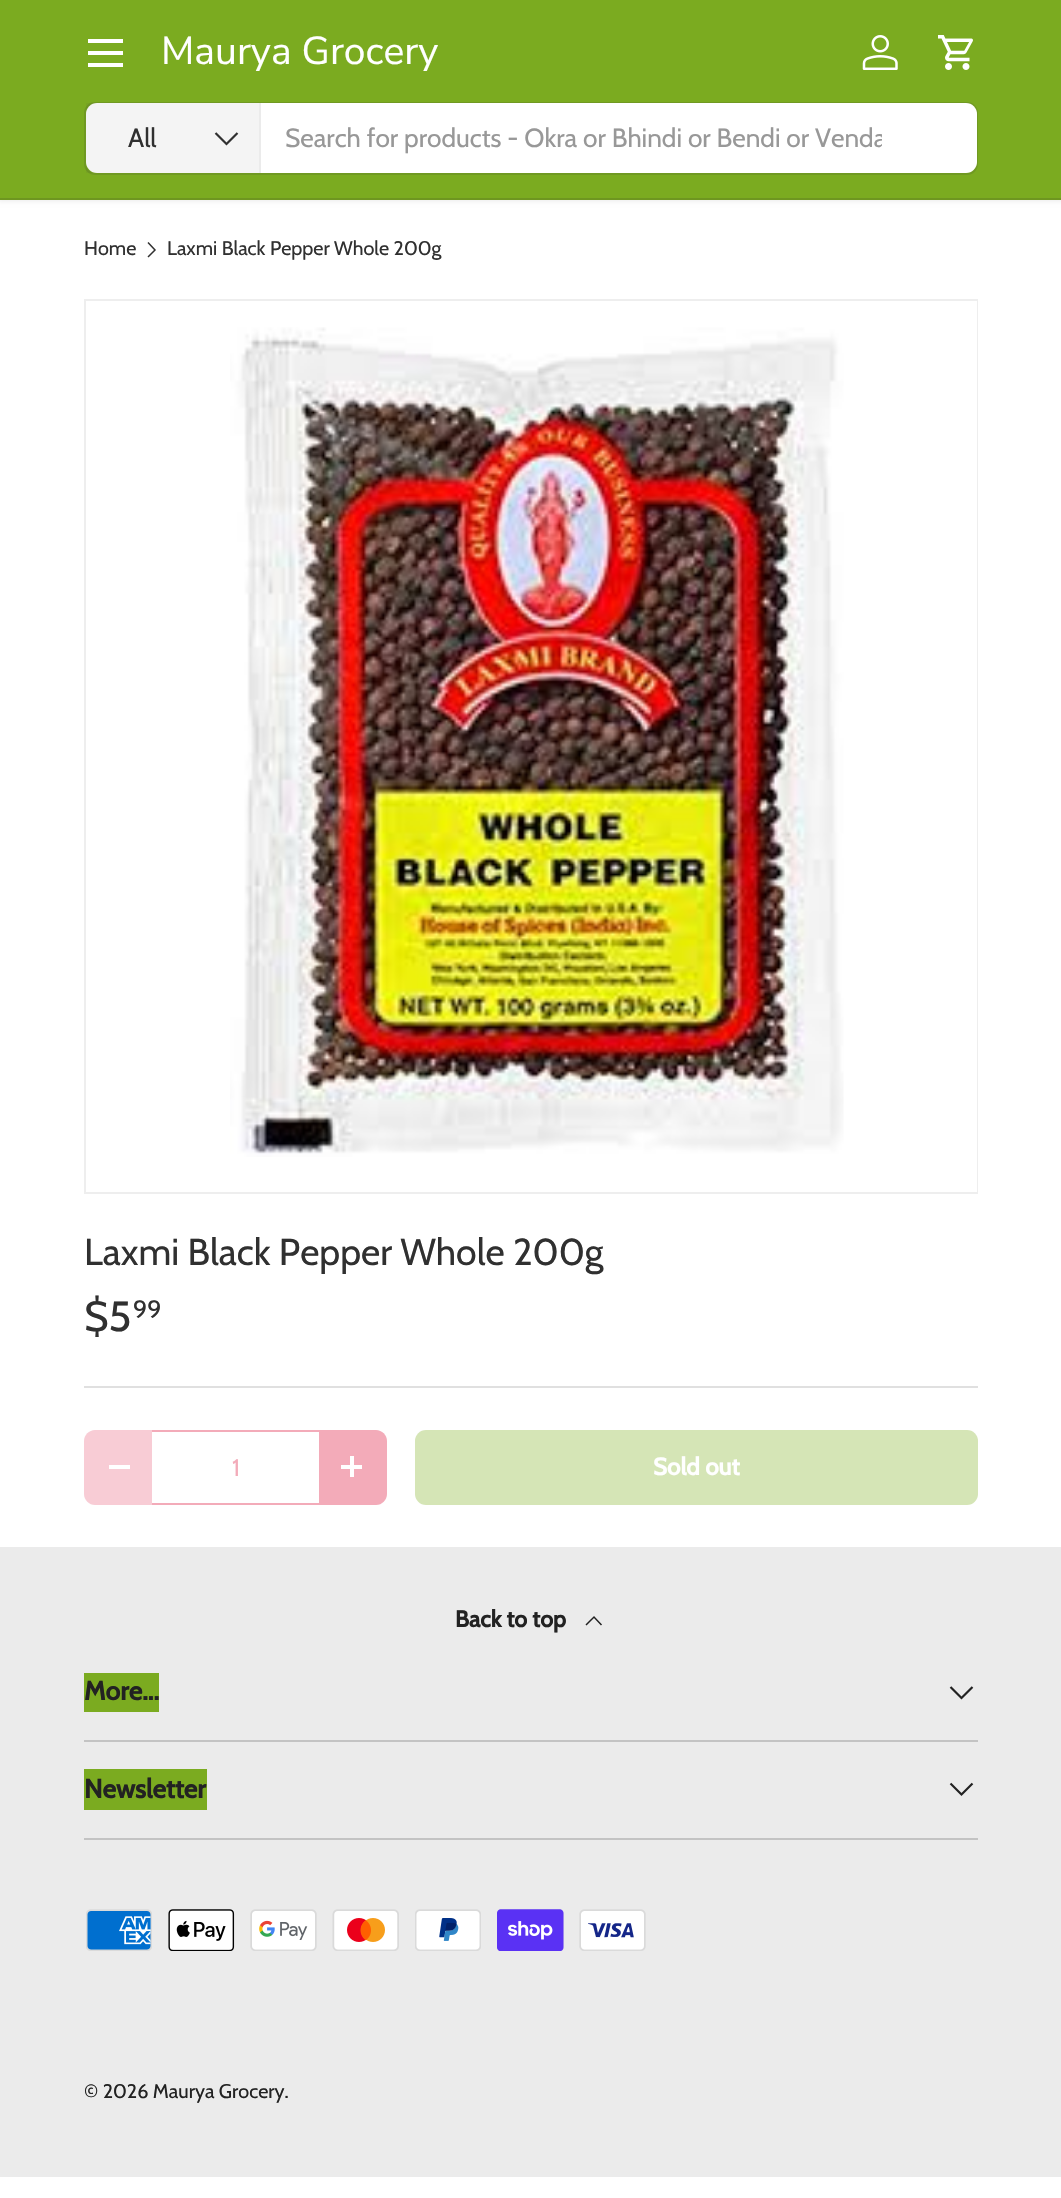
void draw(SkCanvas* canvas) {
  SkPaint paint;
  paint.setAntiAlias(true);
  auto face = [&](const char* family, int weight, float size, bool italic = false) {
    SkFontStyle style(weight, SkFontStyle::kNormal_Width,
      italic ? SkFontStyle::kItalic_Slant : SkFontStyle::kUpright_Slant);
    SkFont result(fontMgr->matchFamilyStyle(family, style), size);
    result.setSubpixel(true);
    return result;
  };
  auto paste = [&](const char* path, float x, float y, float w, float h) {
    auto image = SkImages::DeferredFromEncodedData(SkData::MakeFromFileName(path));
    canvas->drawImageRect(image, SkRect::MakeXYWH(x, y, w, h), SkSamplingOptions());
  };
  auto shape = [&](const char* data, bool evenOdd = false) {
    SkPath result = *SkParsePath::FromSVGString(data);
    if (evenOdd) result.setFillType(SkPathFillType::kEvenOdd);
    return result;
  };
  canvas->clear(0xffffffff);
  paint.setColor(0x14000000);
  paint.setMaskFilter(SkMaskFilter::MakeBlur(kNormal_SkBlurStyle, 2.5f));
  canvas->drawRect(SkRect::MakeXYWH(-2, -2, 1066, 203), paint);
  paint.setMaskFilter(nullptr);
  {
    const struct { float x, y, w, h; SkColor color; } items[] = {
      {0, 0, 1061, 198, 0xff7bab20},
      {88, 39, 35, 4, 0xffffffff},
      {88, 63, 35, 4, 0xffffffff},
      {88, 51, 35, 4, 0xffffffff},
    };
    for (auto [x, y, w, h, color] : items) {
      paint.setColor(color);
      canvas->drawRect(SkRect::MakeXYWH(x, y, w, h), paint);
    }
  }
  paste("img/1.png", 862, 35, 36, 35);
  paste("img/2.png", 938, 35, 35, 35);
  paint.setStroke(true);
  paint.setStrokeWidth(2);
  paint.setColor(0xff709922);
  canvas->drawRoundRect(SkRect::MakeXYWH(85, 103, 892, 71), 10, 10, paint);
  paint.setStroke(false);
  paint.setColor(0xffffffff);
  canvas->drawRoundRect(SkRect::MakeXYWH(86, 103, 891, 70), 11, 11, paint);
  paint.setColor(0x0d303030);
  canvas->drawRect(SkRect::MakeXYWH(86, 103, 173, 70), paint);
  paint.setColor(0xffebebeb);
  canvas->drawRect(SkRect::MakeXYWH(259, 103, 2, 70), paint);
  paint.setStroke(true);
  paint.setStrokeWidth(2.2f);
  paint.setColor(0xff303030);
  canvas->drawPath(shape("M237.5 133L226.5 144L215.5 133"), paint);
  paint.setStroke(false);
  paint.setColor(0xff6e9620);
  canvas->drawRect(SkRect::MakeXYWH(0, 198, 1061, 2), paint);
  paint.setStroke(true);
  paint.setStrokeWidth(1.5f);
  paint.setColor(0xff303030);
  canvas->drawPath(shape("M148 242.5L155 250L148 257"), paint);
  paint.setStrokeWidth(2);
  paint.setColor(0xffeeeeee);
  canvas->drawRect(SkRect::MakeXYWH(85, 300, 892, 893), paint);
  paint.setStroke(false);
  paint.setColor(0xffffffff);
  canvas->drawRect(SkRect::MakeXYWH(976, 301, 1, 891), paint);
  paste("img/3.png", 230, 327, 614, 830);
  paint.setColor(0xffe0e0e0);
  canvas->drawRect(SkRect::MakeXYWH(84, 1386, 894, 2), paint);
  paint.setColor(0xfff8ccd5);
  canvas->drawPath(shape("M95 1430H152V1505H95C89 1505 84 1500 84 1494V1441C84 1435 89 1430 95 1430Z"), paint);
  {
    const struct { float x, y, w, h; SkColor color; } items[] = {
      {109, 1465, 21, 4, 0xffffffff},
      {152, 1503, 167, 2, 0xfff3abb9},
      {152, 1430, 167, 2, 0xfff3abb9},
    };
    for (auto [x, y, w, h, color] : items) {
      paint.setColor(color);
      canvas->drawRect(SkRect::MakeXYWH(x, y, w, h), paint);
    }
  }
  canvas->drawPath(shape("M319 1430H376C382 1430 387 1435 387 1441V1494C387 1500 382 1505 376 1505H319Z"), paint);
  paint.setColor(0xffffffff);
  canvas->drawRect(SkRect::MakeXYWH(341, 1465, 21, 4), paint);
  canvas->drawRect(SkRect::MakeXYWH(350, 1456, 4, 21), paint);
  {
    const SkColor colors[] = {0xffd5e5b6, 0xffcadda6, 0xffcadda6};
    const float stops[] = {0.6f, 0.6f, 1};
    const SkPoint ends[] = {{455, 1267}, {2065, 1668}};
    paint.setShader(SkGradientShader::MakeLinear(ends, colors, stops, 3, SkTileMode::kClamp));
    paint.setAlpha(255);
  }
  canvas->drawRoundRect(SkRect::MakeXYWH(415, 1430, 563, 75), 11, 11, paint);
  paint.setShader(nullptr);
  paint.setColor(0xffebebeb);
  canvas->drawRect(SkRect::MakeXYWH(0, 1547, 1061, 630), paint);
  paint.setStroke(true);
  paint.setStrokeWidth(1.5f);
  paint.setColor(0xff222222);
  canvas->drawPath(shape("M586 1625L594 1617L601.5 1625"), paint);
  paint.setStroke(false);
  paint.setColor(0xffc3c3c3);
  canvas->drawRect(SkRect::MakeXYWH(84, 1740, 894, 2), paint);
  paint.setColor(0xff7bab20);
  canvas->drawRect(SkRect::MakeXYWH(84, 1673, 75, 39), paint);
  paint.setStroke(true);
  paint.setStrokeWidth(2.2f);
  paint.setColor(0xff222222);
  canvas->drawPath(shape("M972.5 1687L961.5 1698L950.5 1687"), paint);
  paint.setStroke(false);
  paint.setColor(0xffc3c3c3);
  canvas->drawRect(SkRect::MakeXYWH(84, 1838, 894, 2), paint);
  paint.setColor(0xff7bab20);
  canvas->drawRect(SkRect::MakeXYWH(84, 1769, 123, 41), paint);
  paint.setStroke(true);
  paint.setColor(0xff222222);
  canvas->drawPath(shape("M972.5 1783.5L961.5 1794.5L950.5 1783.5"), paint);
  paste("img/4.png", 86, 1909, 66, 42);
  paste("img/5.png", 168, 1909, 67, 42);
  paste("img/6.png", 250, 1909, 67, 42);
  paste("img/7.png", 332, 1909, 67, 42);
  paste("img/8.png", 415, 1909, 66, 42);
  paste("img/9.png", 497, 1909, 67, 42);
  paste("img/10.png", 579, 1909, 67, 42);
  auto f0 = face("Nunito Sans", 400, 39);
  paint.setStroke(false);
  paint.setColor(0xffffffff);
  canvas->drawString("Maurya Grocery", 161, 64, f0, paint);
  auto f1 = face("Cabin", 400, 26.25f);
  paint.setColor(0xff303030);
  canvas->drawString("All", 128, 147, f1, paint);
  canvas->save();
  canvas->clipRect(SkRect::MakeXYWH(285, 123, 597, 31));
  paint.setColor(0xff989898);
  canvas->drawString("Search for products - Okra or Bhindi or Bendi or Venda", 285, 147, f1, paint);
  canvas->restore();
  auto f2 = face("Cabin", 400, 19.75f);
  paint.setColor(0xff303030);
  canvas->drawString("Home", 84, 255, f2, paint);
  canvas->drawString("Laxmi Black Pepper Whole 200g", 167, 255, f2, paint);
  auto f3 = face("Cabin", 400, 37.4f);
  canvas->drawString("Laxmi Black Pepper Whole 200g", 84, 1265, f3, paint);
  auto f4 = face("Cabin", 400, 42);
  canvas->drawString("$5", 84, 1331, f4, paint);
  auto f5 = face("Cabin", 400, 25);
  canvas->drawString("99", 133, 1318, f5, paint);
  auto f6 = face("Cabin", 400, 24);
  paint.setColor(0xfff3abb9);
  canvas->drawString("1", 232, 1476, f6, paint);
  auto f7 = face("Cabin", 700, 24);
  paint.setColor(0xffffffff);
  canvas->drawString("Sold out", 653, 1475, f7, paint);
  auto f8 = face("Cabin", 700, 23);
  paint.setColor(0xff222222);
  canvas->drawString("Back to top", 455, 1627, f8, paint);
  auto f9 = face("Cabin", 700, 26.25f);
  canvas->drawString("More...", 84, 1700, f9, paint);
  canvas->drawString("Newsletter", 84, 1798, f9, paint);
  canvas->drawString("© 2026 Maurya Grocery.", 84, 2098, f2, paint);
}
